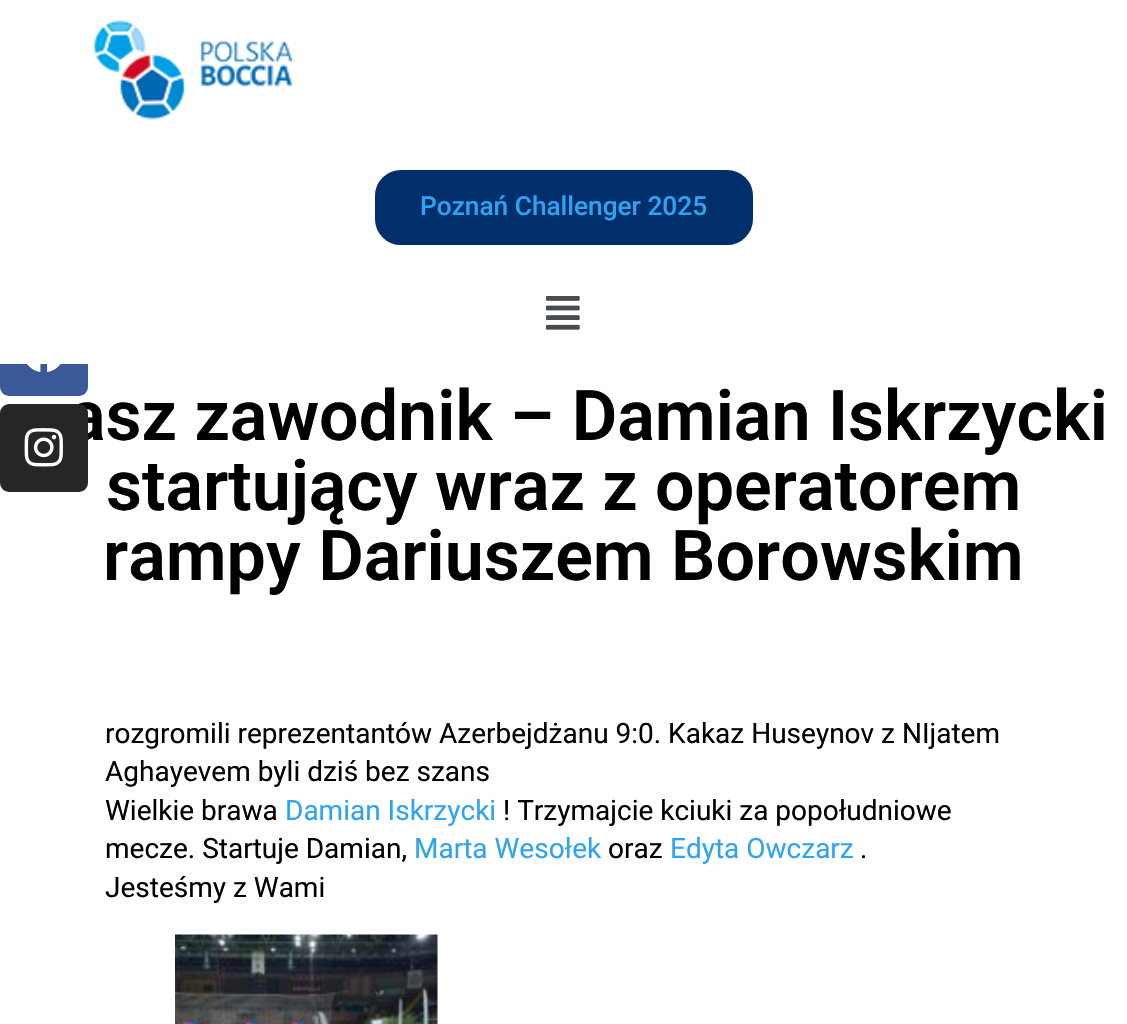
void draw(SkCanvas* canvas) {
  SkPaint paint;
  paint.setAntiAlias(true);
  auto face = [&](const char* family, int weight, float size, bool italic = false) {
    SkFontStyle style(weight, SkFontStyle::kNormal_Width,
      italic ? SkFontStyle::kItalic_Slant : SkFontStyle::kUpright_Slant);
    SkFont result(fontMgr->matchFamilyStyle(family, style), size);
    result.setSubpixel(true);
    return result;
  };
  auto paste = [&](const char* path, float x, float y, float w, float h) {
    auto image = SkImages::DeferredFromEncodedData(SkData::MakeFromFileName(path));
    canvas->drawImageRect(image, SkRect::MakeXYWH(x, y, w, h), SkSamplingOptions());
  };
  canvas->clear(0xffffffff);
  paste("img/1.png", 94, 19, 199, 101);
  paint.setColor(0xff012f6b);
  canvas->drawRoundRect(SkRect::MakeXYWH(377, 172, 374, 71), 24, 24, paint);
  paint.setStroke(true);
  paint.setStrokeWidth(4);
  canvas->drawRoundRect(SkRect::MakeXYWH(377, 172, 374, 71), 24, 24, paint);
  paste("img/2.png", 546, 296, 34, 34);
  paste("img/5.png", 175, 934, 263, 90);
  auto f0 = face("Roboto", 500, 26.25f);
  paint.setStroke(false);
  paint.setColor(0xff2ea3f2);
  canvas->drawString("Poznań Challenger 2025", 420, 215, f0, paint);
  auto f1 = face("Roboto", 600, 70);
  paint.setColor(0xff000000);
  canvas->drawString("asz zawodnik – Damian Iskrzycki", 68, 440, f1, paint);
  paint.setColor(0xff3b5998);
  canvas->drawRoundRect(SkRect::MakeXYWH(0, 308, 88, 88), 9, 9, paint);
  paint.setColor(0xffffffff);
  canvas->drawRect(SkRect::MakeXYWH(0, 308, 88, 56), paint);
  paint.setColor(0xff262626);
  canvas->drawRoundRect(SkRect::MakeXYWH(0, 404, 88, 88), 9, 9, paint);
  paste("img/4.png", 24, 428, 39, 39);
  paste("img/3.png", 27, 364, 34, 8);
  paint.setColor(0xff000000);
  canvas->drawString("startujący wraz z operatorem", 106, 510, f1, paint);
  canvas->drawString("rampy Dariuszem Borowskim", 103, 580, f1, paint);
  auto f2 = face("Roboto", 400, 28);
  {
    const struct { const char* s; float x, y; } items[] = {
      {"rozgromili reprezentantów Azerbejdżanu 9:0. Kakaz Huseynov z NIjatem", 105, 743},
      {"Aghayevem byli dziś bez szans", 105, 781},
      {"Wielkie brawa", 105, 820},
    };
    for (auto [s, x, y] : items) {
      canvas->drawString(s, x, y, f2, paint);
    }
  }
  paint.setColor(0xff2ea3f2);
  canvas->drawString("Damian Iskrzycki", 285, 820, f2, paint);
  paint.setColor(0xff000000);
  canvas->drawString("! Trzymajcie kciuki za popołudniowe", 503, 820, f2, paint);
  canvas->drawString("mecze. Startuje Damian,", 105, 858, f2, paint);
  paint.setColor(0xff2ea3f2);
  canvas->drawString("Marta Wesołek", 414, 858, f2, paint);
  paint.setColor(0xff000000);
  canvas->drawString("oraz", 608, 858, f2, paint);
  paint.setColor(0xff2ea3f2);
  canvas->drawString("Edyta Owczarz", 670, 858, f2, paint);
  paint.setColor(0xff000000);
  canvas->drawString(".", 860, 858, f2, paint);
  canvas->drawString("Jesteśmy z Wami", 105, 897, f2, paint);
}
